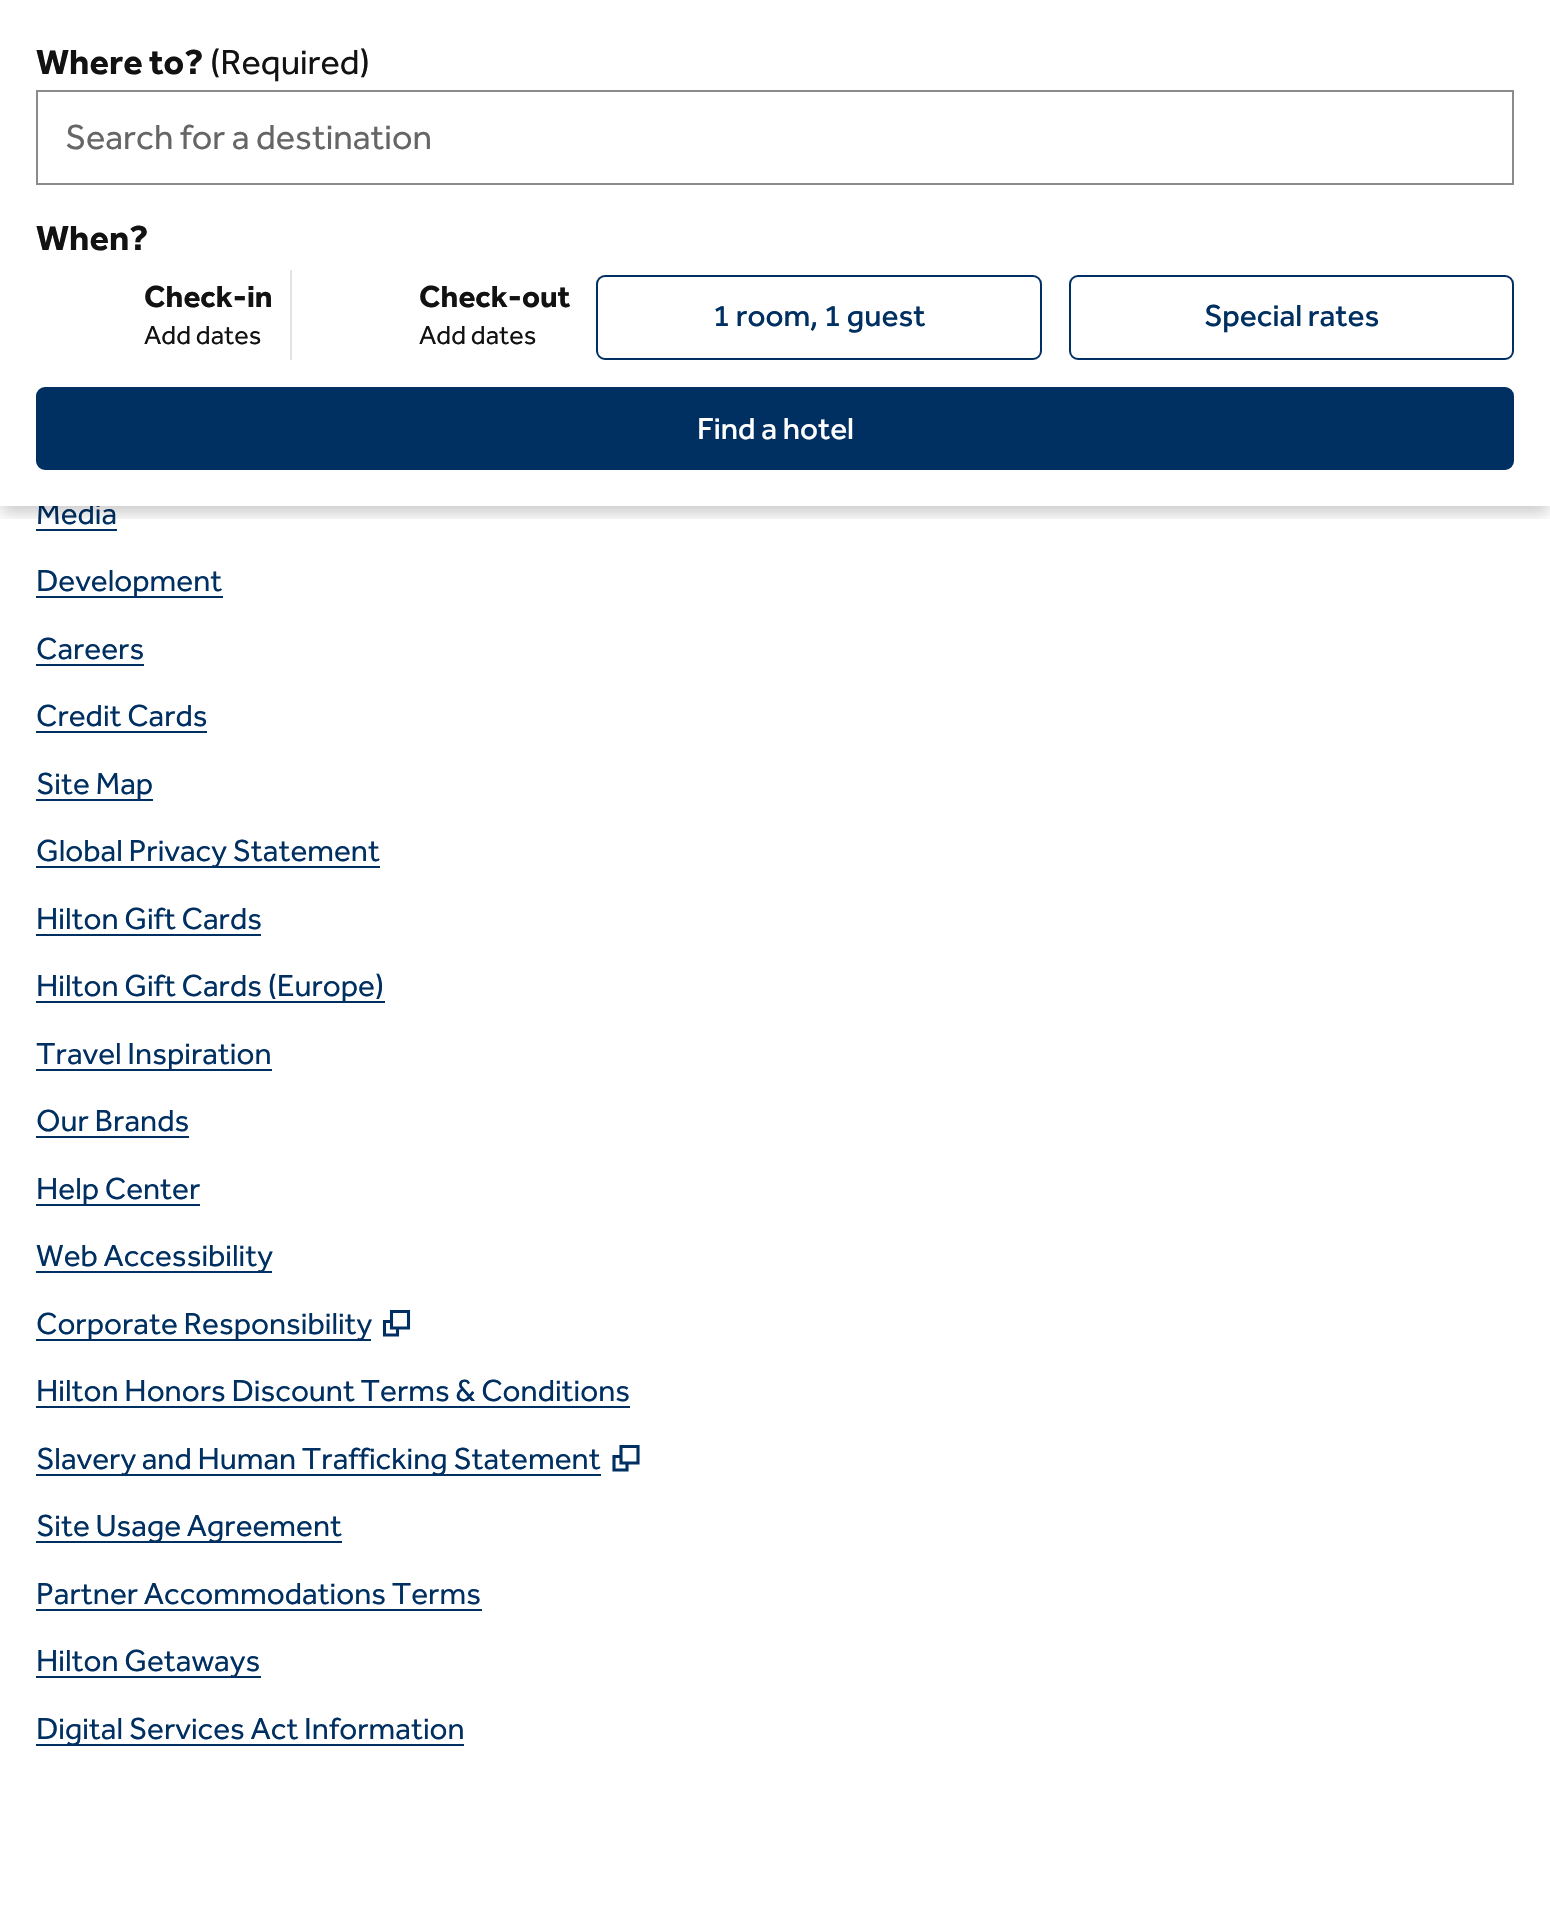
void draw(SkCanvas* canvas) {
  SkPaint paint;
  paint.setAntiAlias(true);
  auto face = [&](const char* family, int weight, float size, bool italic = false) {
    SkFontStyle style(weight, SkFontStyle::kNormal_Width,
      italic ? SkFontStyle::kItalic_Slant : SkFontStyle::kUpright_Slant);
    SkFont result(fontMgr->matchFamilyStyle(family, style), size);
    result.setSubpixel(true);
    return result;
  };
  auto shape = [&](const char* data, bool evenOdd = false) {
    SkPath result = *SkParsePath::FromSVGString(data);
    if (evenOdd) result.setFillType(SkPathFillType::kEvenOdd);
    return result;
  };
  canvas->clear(0xffffffff);
  {
    const struct { float x, y, w, h; SkColor color; } items[] = {
      {36, 529, 81, 2, 0xff002f61},
      {36, 596, 187, 2, 0xff002f61},
      {36, 664, 108, 2, 0xff002f61},
      {36, 731, 171, 2, 0xff002f61},
      {36, 799, 117, 2, 0xff002f61},
      {36, 866, 344, 2, 0xff002f61},
      {36, 934, 225, 2, 0xff002f61},
      {36, 1001, 349, 2, 0xff002f61},
      {36, 1069, 236, 2, 0xff002f61},
      {36, 1136, 153, 2, 0xff002f61},
      {36, 1204, 164, 2, 0xff002f61},
      {36, 1271, 236, 2, 0xff002f61},
      {36, 1339, 335, 2, 0xff002f61},
    };
    for (auto [x, y, w, h, color] : items) {
      paint.setColor(color);
      canvas->drawRect(SkRect::MakeXYWH(x, y, w, h), paint);
    }
  }
  paint.setStroke(true);
  paint.setStrokeWidth(3.1f);
  canvas->drawPath(shape("M391.5 1311.5H408.5V1328H391.5ZM384.5 1335V1321.5H391.5V1328H397.5V1335Z"), paint);
  paint.setStroke(false);
  canvas->drawRect(SkRect::MakeXYWH(36, 1406, 594, 2), paint);
  canvas->drawRect(SkRect::MakeXYWH(36, 1474, 565, 2), paint);
  paint.setStroke(true);
  canvas->drawPath(shape("M621 1446.5H638V1463H621ZM614 1470V1456.5H621V1463H627V1470Z"), paint);
  paint.setStroke(false);
  {
    const struct { float x, y, w, h; SkColor color; } items[] = {
      {36, 1541, 306, 2, 0xff002f61},
      {36, 1609, 446, 2, 0xff002f61},
      {36, 1676, 225, 2, 0xff002f61},
      {36, 1744, 428, 2, 0xff002f61},
    };
    for (auto [x, y, w, h, color] : items) {
      paint.setColor(color);
      canvas->drawRect(SkRect::MakeXYWH(x, y, w, h), paint);
    }
  }
  auto f0 = face("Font", 400, 31.5f);
  canvas->drawString("Media", 36, 524, f0, paint);
  paint.setColor(0xffffffff);
  canvas->drawRect(SkRect::MakeXYWH(39, 503, 61, 3), paint);
  canvas->save();
  canvas->clipRect(SkRect::MakeXYWH(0, 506, 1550, 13));
  paint.setColor(0x1a000000);
  paint.setMaskFilter(SkMaskFilter::MakeBlur(kNormal_SkBlurStyle, 7));
  canvas->drawRect(SkRect::MakeXYWH(2, 11, 1546, 502), paint);
  paint.setMaskFilter(nullptr);
  paint.setMaskFilter(SkMaskFilter::MakeBlur(kNormal_SkBlurStyle, 7));
  canvas->drawRect(SkRect::MakeXYWH(2, 11, 1546, 502), paint);
  paint.setMaskFilter(nullptr);
  canvas->restore();
  paint.setStroke(true);
  paint.setStrokeWidth(2);
  paint.setColor(0xff002f61);
  canvas->drawRoundRect(SkRect::MakeXYWH(1070, 276, 443, 83), 8, 8, paint);
  auto f1 = face("Font", 500, 31.5f);
  paint.setStroke(false);
  canvas->drawString("Special rates", 1204, 326, f1, paint);
  paint.setStroke(true);
  canvas->drawRoundRect(SkRect::MakeXYWH(597, 276, 444, 83), 8, 8, paint);
  paint.setStroke(false);
  canvas->drawString("1 room, 1 guest", 713, 326, f1, paint);
  paint.setStroke(true);
  paint.setColor(0xff8b8b8b);
  canvas->drawRect(SkRect::MakeXYWH(37, 91, 1476, 93), paint);
  auto f2 = face("Font", 400, 36);
  paint.setStroke(false);
  paint.setColor(0xff666666);
  canvas->drawString("Search for a destination", 65, 149, f2, paint);
  paint.setColor(0xff121212);
  canvas->drawString("(Required)", 210, 74, f2, paint);
  auto f3 = face("Font", 700, 36);
  canvas->drawString("Where to?", 36, 74, f3, paint);
  paint.setColor(0xff002f61);
  canvas->drawRoundRect(SkRect::MakeXYWH(37, 388, 1476, 81), 8, 8, paint);
  paint.setStroke(true);
  canvas->drawRoundRect(SkRect::MakeXYWH(37, 388, 1476, 81), 8, 8, paint);
  paint.setStroke(false);
  paint.setColor(0xffffffff);
  canvas->drawString("Find a hotel", 697, 439, f1, paint);
  auto f4 = face("Font", 400, 27);
  paint.setColor(0xff121212);
  canvas->drawString("Add dates", 419, 344, f4, paint);
  auto f5 = face("Font", 700, 31.5f);
  canvas->drawString("Check-out", 419, 307, f5, paint);
  paint.setColor(0xffe3e3e3);
  canvas->drawRect(SkRect::MakeXYWH(290, 270, 2, 90), paint);
  paint.setColor(0xff121212);
  canvas->drawString("Add dates", 144, 344, f4, paint);
  canvas->drawString("Check-in", 144, 307, f5, paint);
  canvas->drawString("When?", 36, 250, f3, paint);
  paint.setColor(0xff002f61);
  {
    const struct { const char* s; float x, y; } items[] = {
      {"Development", 36, 591},
      {"Careers", 36, 659},
      {"Credit Cards", 36, 726},
      {"Site Map", 36, 794},
      {"Global Privacy Statement", 36, 861},
      {"Hilton Gift Cards", 36, 929},
      {"Hilton Gift Cards (Europe)", 36, 996},
      {"Travel Inspiration", 36, 1064},
      {"Our Brands", 36, 1131},
      {"Help Center", 36, 1199},
      {"Web Accessibility", 36, 1266},
      {"Corporate Responsibility", 36, 1334},
      {"Hilton Honors Discount Terms & Conditions", 36, 1401},
      {"Slavery and Human Trafficking Statement", 36, 1469},
      {"Site Usage Agreement", 36, 1536},
      {"Partner Accommodations Terms", 36, 1604},
      {"Hilton Getaways", 36, 1671},
      {"Digital Services Act Information", 36, 1739},
    };
    for (auto [s, x, y] : items) {
      canvas->drawString(s, x, y, f0, paint);
    }
  }
}
